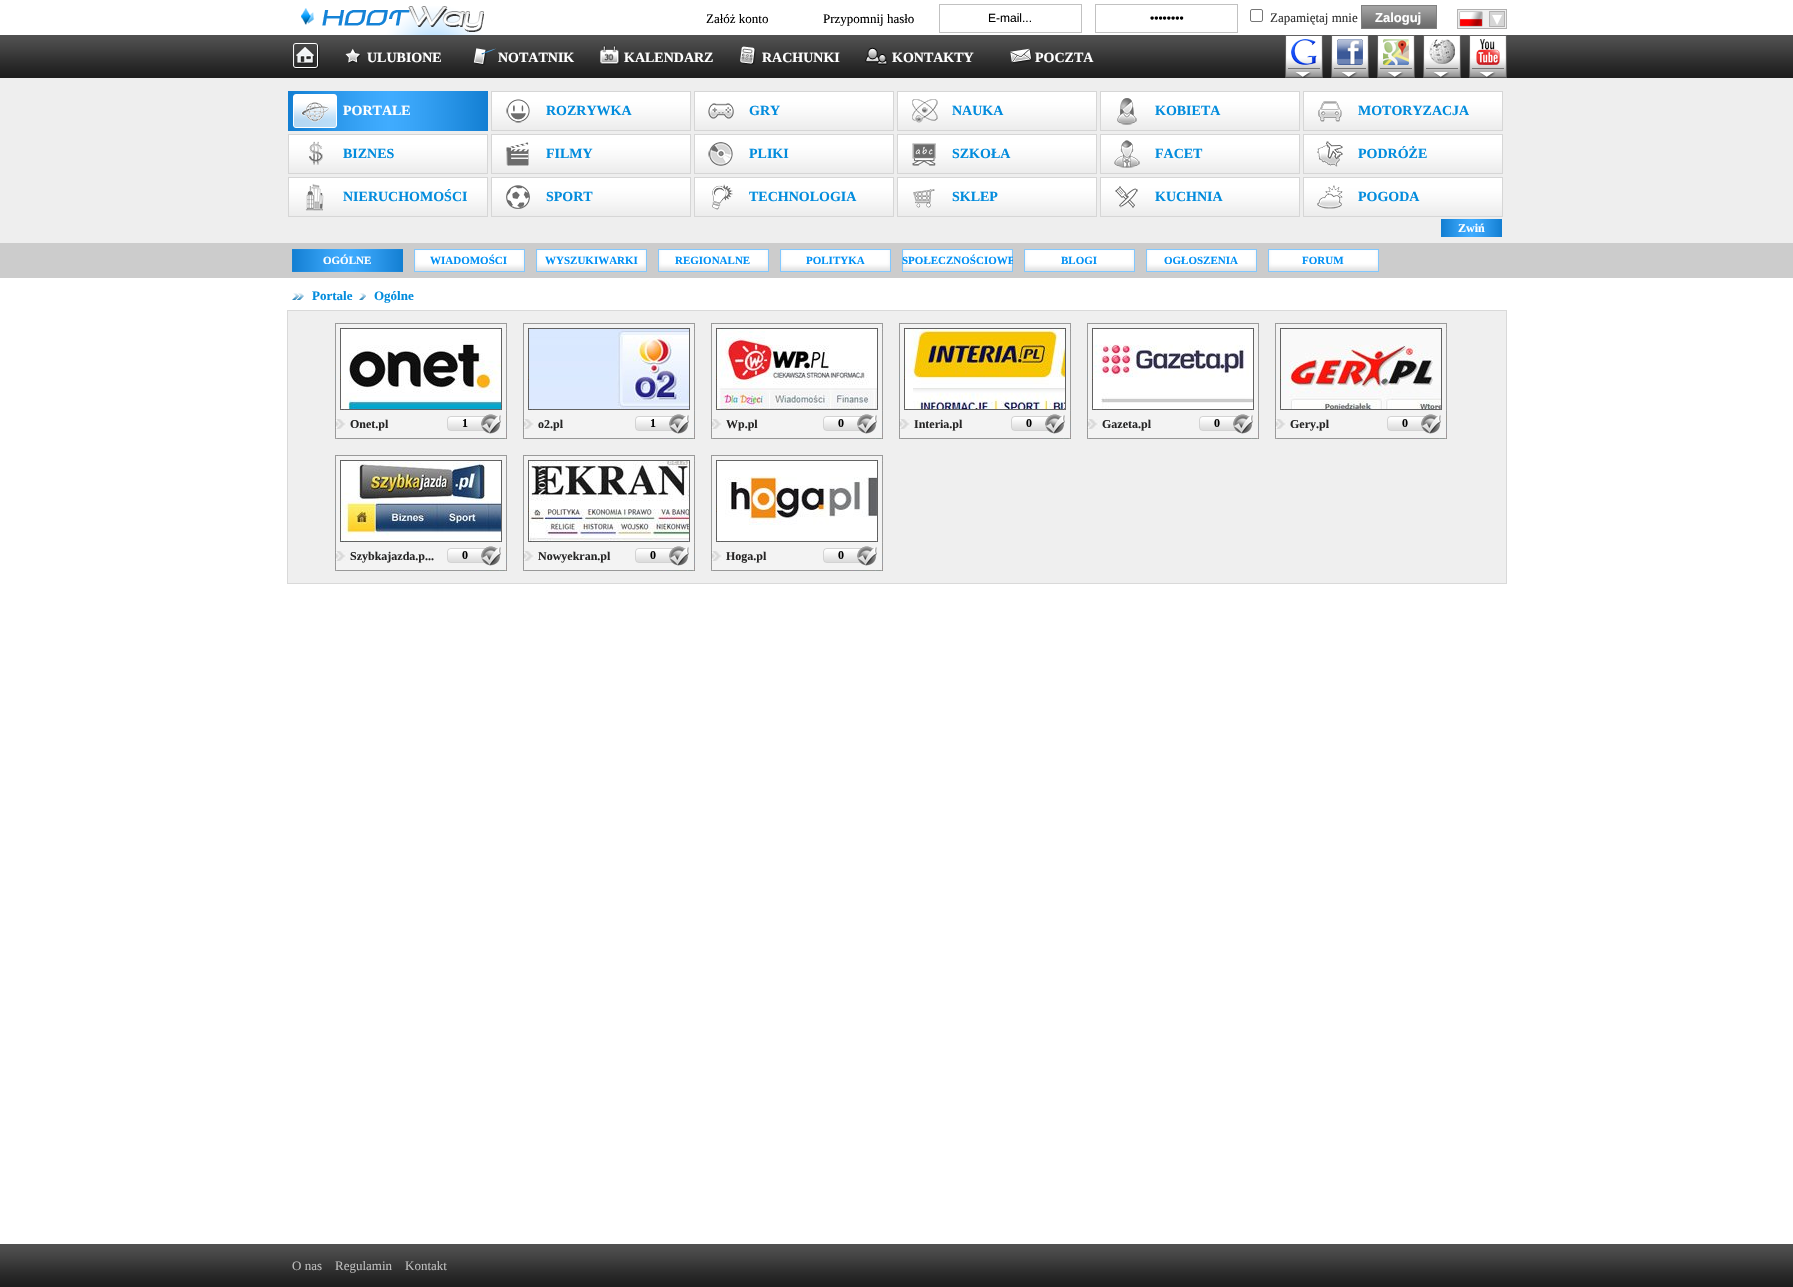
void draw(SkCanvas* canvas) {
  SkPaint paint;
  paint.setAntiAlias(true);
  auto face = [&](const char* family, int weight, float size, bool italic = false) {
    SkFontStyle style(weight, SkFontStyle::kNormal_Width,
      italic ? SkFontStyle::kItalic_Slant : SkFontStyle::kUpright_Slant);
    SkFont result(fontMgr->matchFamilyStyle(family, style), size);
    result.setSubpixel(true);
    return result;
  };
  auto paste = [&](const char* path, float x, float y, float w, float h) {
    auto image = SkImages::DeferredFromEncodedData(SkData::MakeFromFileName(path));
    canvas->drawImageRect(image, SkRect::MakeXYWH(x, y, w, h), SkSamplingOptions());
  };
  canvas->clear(0xffffffff);
  paste("img/1.png", 301, 6, 183, 29);
  paint.setStroke(true);
  paint.setStrokeWidth(1);
  paint.setColor(0xffc1c1c1);
  canvas->drawRect(SkRect::MakeXYWH(939.5f, 4.5f, 142, 28), paint);
  canvas->drawRect(SkRect::MakeXYWH(1095.5f, 4.5f, 142, 28), paint);
  paint.setColor(0xff767676);
  canvas->drawRoundRect(SkRect::MakeXYWH(1250.5f, 9.5f, 12, 12), 1.5f, 1.5f, paint);
  paste("img/2.png", 1361, 5, 76, 24);
  paste("img/3.png", 1457, 9, 50, 20);
  paste("img/4.png", 1459, 11, 24, 16);
  paste("img/5.png", 1489, 11, 16, 16);
  paste("img/6.png", 0, 35, 1793, 43);
  paste("img/7.png", 293, 43, 27, 27);
  paste("img/8.png", 345, 48, 16, 16);
  paste("img/9.png", 473, 48, 23, 18);
  paste("img/10.png", 600, 45, 21, 20);
  paste("img/11.png", 740, 46, 16, 19);
  paste("img/12.png", 865, 47, 23, 18);
  paste("img/13.png", 1010, 48, 23, 16);
  paste("img/14.png", 1285, 35, 38, 43);
  paste("img/15.png", 1291, 39, 26, 26);
  paste("img/14.png", 1331, 35, 38, 43);
  paste("img/16.png", 1337, 39, 26, 26);
  paste("img/14.png", 1377, 35, 38, 43);
  paste("img/17.png", 1383, 39, 26, 26);
  paste("img/14.png", 1423, 35, 38, 43);
  paste("img/18.png", 1429, 39, 26, 25);
  paste("img/14.png", 1469, 35, 38, 43);
  paste("img/19.png", 1476, 39, 24, 26);
  paint.setStroke(false);
  paint.setColor(0xffeeeeee);
  canvas->drawRect(SkRect::MakeXYWH(0, 78, 1793, 165), paint);
  paste("img/20.png", 288, 91, 200, 40);
  paste("img/21.png", 301, 102, 28, 20);
  paste("img/22.png", 491, 91, 200, 40);
  paste("img/23.png", 506, 99, 24, 24);
  paste("img/22.png", 694, 91, 200, 40);
  paste("img/24.png", 708, 103, 26, 16);
  paste("img/22.png", 897, 91, 200, 40);
  paste("img/25.png", 912, 99, 26, 24);
  paste("img/22.png", 1100, 91, 200, 40);
  paste("img/26.png", 1117, 98, 20, 27);
  paste("img/22.png", 1303, 91, 200, 40);
  paste("img/27.png", 1318, 101, 24, 21);
  paste("img/22.png", 288, 134, 200, 40);
  paste("img/28.png", 309, 141, 14, 24);
  paste("img/22.png", 491, 134, 200, 40);
  paste("img/29.png", 506, 142, 23, 24);
  paste("img/22.png", 694, 134, 200, 40);
  paste("img/30.png", 708, 142, 25, 24);
  paste("img/22.png", 897, 134, 200, 40);
  paste("img/31.png", 912, 143, 24, 23);
  paste("img/22.png", 1100, 134, 200, 40);
  paste("img/32.png", 1114, 140, 26, 28);
  paste("img/22.png", 1303, 134, 200, 40);
  paste("img/33.png", 1317, 141, 26, 26);
  paste("img/22.png", 288, 177, 200, 40);
  paste("img/34.png", 305, 183, 19, 28);
  paste("img/22.png", 491, 177, 200, 40);
  paste("img/35.png", 506, 185, 24, 24);
  paste("img/22.png", 694, 177, 200, 40);
  paste("img/36.png", 712, 184, 21, 26);
  paste("img/22.png", 897, 177, 200, 40);
  paste("img/37.png", 913, 189, 22, 19);
  paste("img/22.png", 1100, 177, 200, 40);
  paste("img/38.png", 1115, 186, 23, 22);
  paste("img/22.png", 1303, 177, 200, 40);
  paste("img/39.png", 1317, 185, 26, 24);
  paste("img/40.png", 1441, 219, 61, 18);
  paint.setColor(0xffcccccc);
  canvas->drawRect(SkRect::MakeXYWH(0, 243, 1793, 35), paint);
  paste("img/41.png", 292, 249, 111, 23);
  paste("img/42.png", 414, 249, 111, 23);
  paste("img/42.png", 536, 249, 111, 23);
  paste("img/42.png", 658, 249, 111, 23);
  paste("img/42.png", 780, 249, 111, 23);
  paste("img/42.png", 902, 249, 111, 23);
  paste("img/42.png", 1024, 249, 111, 23);
  paste("img/42.png", 1146, 249, 111, 23);
  paste("img/42.png", 1268, 249, 111, 23);
  paste("img/43.png", 292, 293, 12, 7);
  paste("img/44.png", 359, 293, 7, 7);
  paint.setColor(0xffefefef);
  canvas->drawRect(SkRect::MakeXYWH(287.5f, 310.5f, 1219, 273), paint);
  paint.setStroke(true);
  paint.setColor(0xffd9d9d9);
  canvas->drawRect(SkRect::MakeXYWH(287.5f, 310.5f, 1219, 273), paint);
  paste("img/45.png", 335, 323, 172, 116);
  paint.setStroke(false);
  paint.setColor(0xffffffff);
  canvas->drawRect(SkRect::MakeXYWH(464, 329, 37, 10), paint);
  paste("img/46.png", 341, 339, 160, 70);
  paste("img/47.png", 447, 414, 54, 20);
  paste("img/45.png", 523, 323, 172, 116);
  paste("img/48.png", 529, 329, 160, 80);
  paste("img/47.png", 635, 414, 54, 20);
  paste("img/45.png", 711, 323, 172, 116);
  paste("img/49.png", 717, 329, 160, 80);
  paste("img/47.png", 823, 414, 54, 20);
  paste("img/45.png", 899, 323, 172, 116);
  paste("img/50.png", 905, 329, 160, 80);
  paste("img/47.png", 1011, 414, 54, 20);
  paste("img/45.png", 1087, 323, 172, 116);
  canvas->drawRect(SkRect::MakeXYWH(1114, 329, 139, 15), paint);
  paste("img/51.png", 1093, 344, 160, 65);
  paste("img/47.png", 1199, 414, 54, 20);
  paste("img/45.png", 1275, 323, 172, 116);
  paste("img/52.png", 1281, 329, 160, 80);
  paste("img/47.png", 1387, 414, 54, 20);
  paste("img/45.png", 335, 455, 172, 116);
  paste("img/53.png", 341, 461, 160, 80);
  paste("img/47.png", 447, 546, 54, 20);
  paste("img/45.png", 523, 455, 172, 116);
  paste("img/54.png", 529, 461, 160, 80);
  paste("img/47.png", 635, 546, 54, 20);
  paste("img/45.png", 711, 455, 172, 116);
  canvas->drawRect(SkRect::MakeXYWH(717, 461, 160, 80), paint);
  paste("img/55.png", 725, 476, 152, 49);
  paste("img/47.png", 823, 546, 54, 20);
  paste("img/6.png", 0, 1244, 1793, 43);
  auto f0 = face("Liberation Serif", 400, 13);
  paint.setColor(0xff000000);
  canvas->drawString("Załóż konto", 706, 23, f0, paint);
  canvas->drawString("Przypomnij hasło", 823, 23, f0, paint);
  auto f1 = face("Liberation Sans", 400, 12);
  canvas->drawString("E-mail...", 988, 22, f1, paint);
  canvas->drawString("••••••••", 1150, 22, f1, paint);
  paint.setColor(0xff333333);
  canvas->drawString("Zapamiętaj mnie", 1270, 22, f0, paint);
  auto f2 = face("Liberation Sans", 700, 13);
  paint.setColor(0xffffffff);
  canvas->drawString("Zaloguj", 1375, 22, f2, paint);
  auto f3 = face("Liberation Serif", 700, 14);
  {
    const struct { const char* s; float x, y; } items[] = {
      {"ULUBIONE", 367, 62},
      {"NOTATNIK", 498, 62},
      {"KALENDARZ", 624, 62},
      {"RACHUNKI", 762, 62},
      {"KONTAKTY", 892, 62},
      {"POCZTA", 1035, 62},
      {"PORTALE", 343, 115},
    };
    for (auto [s, x, y] : items) {
      canvas->drawString(s, x, y, f3, paint);
    }
  }
  paint.setColor(0xff028cdd);
  {
    const struct { const char* s; float x, y; } items[] = {
      {"ROZRYWKA", 546, 115},
      {"GRY", 749, 115},
      {"NAUKA", 952, 115},
      {"KOBIETA", 1155, 115},
      {"MOTORYZACJA", 1358, 115},
      {"BIZNES", 343, 158},
      {"FILMY", 546, 158},
      {"PLIKI", 749, 158},
      {"SZKOŁA", 952, 158},
      {"FACET", 1155, 158},
      {"PODRÓŻE", 1358, 158},
      {"NIERUCHOMOŚCI", 343, 201},
      {"SPORT", 546, 201},
      {"TECHNOLOGIA", 749, 201},
      {"SKLEP", 952, 201},
      {"KUCHNIA", 1155, 201},
      {"POGODA", 1358, 201},
    };
    for (auto [s, x, y] : items) {
      canvas->drawString(s, x, y, f3, paint);
    }
  }
  auto f4 = face("Liberation Serif", 700, 12);
  paint.setColor(0xffffffff);
  canvas->drawString("Zwiń", 1458, 232, f4, paint);
  auto f5 = face("Liberation Serif", 700, 11);
  canvas->drawString("OGÓLNE", 323, 264, f5, paint);
  paint.setColor(0xff0190f4);
  {
    const struct { const char* s; float x, y; } items[] = {
      {"WIADOMOŚCI", 430, 264},
      {"WYSZUKIWARKI", 545, 264},
      {"REGIONALNE", 675, 264},
      {"POLITYKA", 806, 264},
    };
    for (auto [s, x, y] : items) {
      canvas->drawString(s, x, y, f5, paint);
    }
  }
  canvas->save();
  canvas->clipRect(SkRect::MakeXYWH(902, 249, 111, 23));
  canvas->drawString("SPOŁECZNOŚCIOWE", 902, 264, f5, paint);
  canvas->restore();
  {
    const struct { const char* s; float x, y; } items[] = {
      {"BLOGI", 1061, 264},
      {"OGŁOSZENIA", 1164, 264},
      {"FORUM", 1302, 264},
    };
    for (auto [s, x, y] : items) {
      canvas->drawString(s, x, y, f5, paint);
    }
  }
  auto f6 = face("Liberation Serif", 700, 13);
  paint.setColor(0xff028cdd);
  canvas->drawString("Portale", 312, 300, f6, paint);
  canvas->drawString("Ogólne", 374, 300, f6, paint);
  paint.setColor(0xff262525);
  canvas->drawString("Onet.pl", 350, 428, f4, paint);
  paint.setColor(0xff000000);
  canvas->drawString("1", 462, 427, f4, paint);
  paint.setColor(0xff262525);
  canvas->drawString("o2.pl", 538, 428, f4, paint);
  paint.setColor(0xff000000);
  canvas->drawString("1", 650, 427, f4, paint);
  paint.setColor(0xff262525);
  canvas->drawString("Wp.pl", 726, 428, f4, paint);
  paint.setColor(0xff000000);
  canvas->drawString("0", 838, 427, f4, paint);
  paint.setColor(0xff262525);
  canvas->drawString("Interia.pl", 914, 428, f4, paint);
  paint.setColor(0xff000000);
  canvas->drawString("0", 1026, 427, f4, paint);
  paint.setColor(0xff262525);
  canvas->drawString("Gazeta.pl", 1102, 428, f4, paint);
  paint.setColor(0xff000000);
  canvas->drawString("0", 1214, 427, f4, paint);
  paint.setColor(0xff262525);
  canvas->drawString("Gery.pl", 1290, 428, f4, paint);
  paint.setColor(0xff000000);
  canvas->drawString("0", 1402, 427, f4, paint);
  paint.setColor(0xff262525);
  canvas->drawString("Szybkajazda.p...", 350, 560, f4, paint);
  paint.setColor(0xff000000);
  canvas->drawString("0", 462, 559, f4, paint);
  paint.setColor(0xff262525);
  canvas->drawString("Nowyekran.pl", 538, 560, f4, paint);
  paint.setColor(0xff000000);
  canvas->drawString("0", 650, 559, f4, paint);
  paint.setColor(0xff262525);
  canvas->drawString("Hoga.pl", 726, 560, f4, paint);
  paint.setColor(0xff000000);
  canvas->drawString("0", 838, 559, f4, paint);
  paint.setColor(0xffbcbcbc);
  {
    const struct { const char* s; float x, y; } items[] = {
      {"O nas", 292, 1270},
      {"Regulamin", 335, 1270},
      {"Kontakt", 405, 1270},
    };
    for (auto [s, x, y] : items) {
      canvas->drawString(s, x, y, f0, paint);
    }
  }
}
